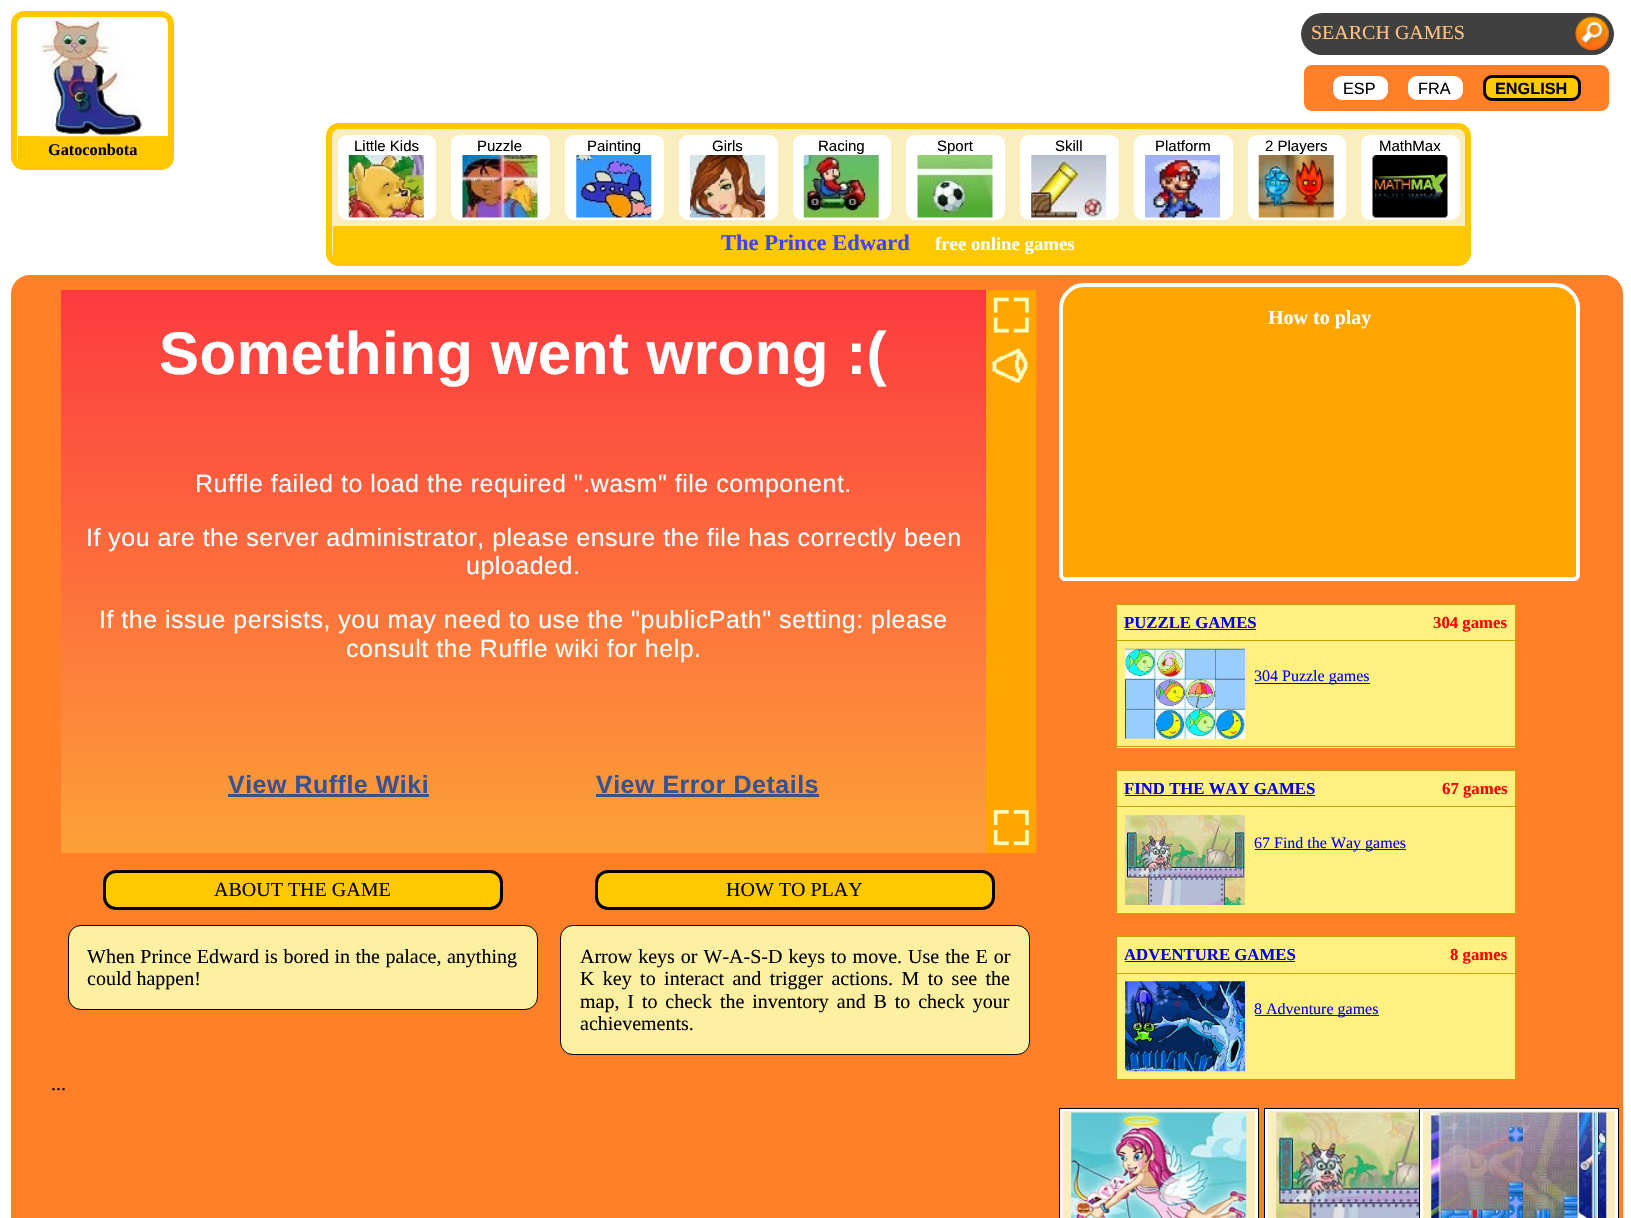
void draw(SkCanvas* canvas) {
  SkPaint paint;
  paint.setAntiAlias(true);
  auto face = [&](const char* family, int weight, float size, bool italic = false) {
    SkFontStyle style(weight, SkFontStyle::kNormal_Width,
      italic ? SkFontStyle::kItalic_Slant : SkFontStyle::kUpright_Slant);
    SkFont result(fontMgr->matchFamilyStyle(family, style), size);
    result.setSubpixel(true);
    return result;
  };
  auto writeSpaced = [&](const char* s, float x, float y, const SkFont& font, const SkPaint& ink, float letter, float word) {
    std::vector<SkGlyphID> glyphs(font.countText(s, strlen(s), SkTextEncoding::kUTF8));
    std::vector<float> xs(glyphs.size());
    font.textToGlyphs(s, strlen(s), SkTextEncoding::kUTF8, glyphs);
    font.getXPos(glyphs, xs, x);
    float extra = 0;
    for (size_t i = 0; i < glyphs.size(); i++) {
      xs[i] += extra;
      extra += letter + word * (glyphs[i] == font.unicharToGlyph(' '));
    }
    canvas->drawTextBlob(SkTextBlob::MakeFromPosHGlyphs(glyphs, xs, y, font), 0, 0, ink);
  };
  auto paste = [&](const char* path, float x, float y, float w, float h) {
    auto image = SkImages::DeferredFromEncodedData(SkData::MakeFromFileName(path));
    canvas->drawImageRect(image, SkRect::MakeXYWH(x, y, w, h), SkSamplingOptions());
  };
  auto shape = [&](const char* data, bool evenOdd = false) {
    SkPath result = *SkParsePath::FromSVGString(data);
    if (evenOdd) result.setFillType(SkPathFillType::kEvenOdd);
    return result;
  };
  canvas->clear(0xffffffff);
  paint.setColor(0xff404040);
  canvas->drawRoundRect(SkRect::MakeXYWH(1301, 13, 313, 42), 21, 21, paint);
  paste("img/1.png", 1574, 16, 35, 35);
  paint.setColor(0xffff8028);
  canvas->drawRoundRect(SkRect::MakeXYWH(1306, 67, 301, 42), 6, 6, paint);
  paint.setStroke(true);
  paint.setStrokeWidth(4);
  canvas->drawRoundRect(SkRect::MakeXYWH(1306, 67, 301, 42), 6, 6, paint);
  paint.setStroke(false);
  paint.setColor(0xffffffff);
  canvas->drawRoundRect(SkRect::MakeXYWH(1334.5f, 77.5f, 52, 21), 7.5f, 7.5f, paint);
  paint.setStroke(true);
  paint.setStrokeWidth(3);
  canvas->drawRoundRect(SkRect::MakeXYWH(1334.5f, 77.5f, 52, 21), 7.5f, 7.5f, paint);
  paint.setStroke(false);
  canvas->drawRoundRect(SkRect::MakeXYWH(1409.5f, 77.5f, 52, 21), 7.5f, 7.5f, paint);
  paint.setStroke(true);
  canvas->drawRoundRect(SkRect::MakeXYWH(1409.5f, 77.5f, 52, 21), 7.5f, 7.5f, paint);
  paint.setStroke(false);
  paint.setColor(0xffffc800);
  canvas->drawRoundRect(SkRect::MakeXYWH(1484.5f, 76.5f, 95, 23), 7.5f, 7.5f, paint);
  paint.setStroke(true);
  paint.setColor(0xff000000);
  canvas->drawRoundRect(SkRect::MakeXYWH(1484.5f, 76.5f, 95, 23), 7.5f, 7.5f, paint);
  paint.setStrokeWidth(6);
  paint.setColor(0xffffc800);
  canvas->drawRoundRect(SkRect::MakeXYWH(14, 14, 157, 153), 10, 10, paint);
  paint.setStroke(false);
  canvas->drawRect(SkRect::MakeXYWH(18, 136, 150, 28), paint);
  paste("img/2.png", 41, 17, 104, 120);
  paint.setColor(0xfffaeebe);
  canvas->drawRoundRect(SkRect::MakeXYWH(329, 126, 1139, 137), 10, 10, paint);
  paint.setStroke(true);
  paint.setColor(0xffffc800);
  canvas->drawRoundRect(SkRect::MakeXYWH(329, 126, 1139, 137), 10, 10, paint);
  paint.setStroke(false);
  paint.setColor(0xffffffff);
  canvas->drawRoundRect(SkRect::MakeXYWH(339.5f, 136.5f, 95, 82), 7.5f, 7.5f, paint);
  paint.setStroke(true);
  paint.setStrokeWidth(3);
  canvas->drawRoundRect(SkRect::MakeXYWH(339.5f, 136.5f, 95, 82), 7.5f, 7.5f, paint);
  paste("img/3.png", 348, 155, 76, 63);
  paint.setStroke(false);
  canvas->drawRoundRect(SkRect::MakeXYWH(452.5f, 136.5f, 96, 82), 7.5f, 7.5f, paint);
  paint.setStroke(true);
  canvas->drawRoundRect(SkRect::MakeXYWH(452.5f, 136.5f, 96, 82), 7.5f, 7.5f, paint);
  paste("img/4.png", 462, 155, 76, 63);
  paint.setStroke(false);
  canvas->drawRoundRect(SkRect::MakeXYWH(566.5f, 136.5f, 96, 82), 7.5f, 7.5f, paint);
  paint.setStroke(true);
  canvas->drawRoundRect(SkRect::MakeXYWH(566.5f, 136.5f, 96, 82), 7.5f, 7.5f, paint);
  paste("img/5.png", 576, 155, 76, 63);
  paint.setStroke(false);
  canvas->drawRoundRect(SkRect::MakeXYWH(680.5f, 136.5f, 96, 82), 7.5f, 7.5f, paint);
  paint.setStroke(true);
  canvas->drawRoundRect(SkRect::MakeXYWH(680.5f, 136.5f, 96, 82), 7.5f, 7.5f, paint);
  paste("img/6.png", 690, 155, 75, 63);
  paint.setStroke(false);
  canvas->drawRoundRect(SkRect::MakeXYWH(794.5f, 136.5f, 95, 82), 7.5f, 7.5f, paint);
  paint.setStroke(true);
  canvas->drawRoundRect(SkRect::MakeXYWH(794.5f, 136.5f, 95, 82), 7.5f, 7.5f, paint);
  paste("img/7.png", 803, 155, 76, 63);
  paint.setStroke(false);
  canvas->drawRoundRect(SkRect::MakeXYWH(907.5f, 136.5f, 96, 82), 7.5f, 7.5f, paint);
  paint.setStroke(true);
  canvas->drawRoundRect(SkRect::MakeXYWH(907.5f, 136.5f, 96, 82), 7.5f, 7.5f, paint);
  paste("img/8.png", 917, 155, 76, 63);
  paint.setStroke(false);
  canvas->drawRoundRect(SkRect::MakeXYWH(1021.5f, 136.5f, 96, 82), 7.5f, 7.5f, paint);
  paint.setStroke(true);
  canvas->drawRoundRect(SkRect::MakeXYWH(1021.5f, 136.5f, 96, 82), 7.5f, 7.5f, paint);
  paste("img/9.png", 1031, 155, 76, 63);
  paint.setStroke(false);
  canvas->drawRoundRect(SkRect::MakeXYWH(1135.5f, 136.5f, 96, 82), 7.5f, 7.5f, paint);
  paint.setStroke(true);
  canvas->drawRoundRect(SkRect::MakeXYWH(1135.5f, 136.5f, 96, 82), 7.5f, 7.5f, paint);
  paste("img/10.png", 1145, 155, 75, 63);
  paint.setStroke(false);
  canvas->drawRoundRect(SkRect::MakeXYWH(1249.5f, 136.5f, 95, 82), 7.5f, 7.5f, paint);
  paint.setStroke(true);
  canvas->drawRoundRect(SkRect::MakeXYWH(1249.5f, 136.5f, 95, 82), 7.5f, 7.5f, paint);
  paste("img/11.png", 1258, 155, 76, 63);
  paint.setStroke(false);
  canvas->drawRoundRect(SkRect::MakeXYWH(1362.5f, 136.5f, 96, 82), 7.5f, 7.5f, paint);
  paint.setStroke(true);
  canvas->drawRoundRect(SkRect::MakeXYWH(1362.5f, 136.5f, 96, 82), 7.5f, 7.5f, paint);
  paste("img/12.png", 1372, 155, 76, 63);
  paint.setStroke(false);
  paint.setColor(0xffffc800);
  canvas->drawRect(SkRect::MakeXYWH(333, 226, 1132, 34), paint);
  paint.setColor(0xffff8028);
  canvas->drawRoundRect(SkRect::MakeXYWH(11, 275, 1612, 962), 19, 19, paint);
  {
    const SkColor colors[] = {0xfffd3a40, 0xfffda138};
    const float stops[] = {0, 1};
    const SkPoint ends[] = {{524, 290}, {524, 853}};
    paint.setShader(SkGradientShader::MakeLinear(ends, colors, stops, 2, SkTileMode::kClamp));
    paint.setAlpha(255);
  }
  canvas->drawRect(SkRect::MakeXYWH(61, 290, 925, 563), paint);
  paint.setShader(nullptr);
  {
    const struct { float x, y, w, h; SkColor color; } items[] = {
      {228, 794, 201, 3, 0xff37528c},
      {596, 794, 223, 3, 0xff37528c},
      {986, 290, 50, 563, 0xffffa500},
    };
    for (auto [x, y, w, h, color] : items) {
      paint.setColor(color);
      canvas->drawRect(SkRect::MakeXYWH(x, y, w, h), paint);
    }
  }
  paste("img/13.png", 993, 290, 44, 50);
  paste("img/14.png", 992, 340, 45, 50);
  paste("img/15.png", 993, 802, 44, 51);
  paint.setColor(0xffffc800);
  canvas->drawRoundRect(SkRect::MakeXYWH(104.5f, 871.5f, 397, 37), 11.5f, 11.5f, paint);
  paint.setStroke(true);
  paint.setColor(0xff000000);
  canvas->drawRoundRect(SkRect::MakeXYWH(104.5f, 871.5f, 397, 37), 11.5f, 11.5f, paint);
  paint.setStroke(false);
  paint.setColor(0xffffc800);
  canvas->drawRoundRect(SkRect::MakeXYWH(596.5f, 871.5f, 397, 37), 11.5f, 11.5f, paint);
  paint.setStroke(true);
  paint.setColor(0xff000000);
  canvas->drawRoundRect(SkRect::MakeXYWH(596.5f, 871.5f, 397, 37), 11.5f, 11.5f, paint);
  paint.setStroke(false);
  paint.setColor(0xffffefa1);
  canvas->drawRoundRect(SkRect::MakeXYWH(68.5f, 925.5f, 469, 84), 12.5f, 12.5f, paint);
  paint.setStroke(true);
  paint.setStrokeWidth(1);
  paint.setColor(0xff000000);
  canvas->drawRoundRect(SkRect::MakeXYWH(68.5f, 925.5f, 469, 84), 12.5f, 12.5f, paint);
  paint.setStroke(false);
  paint.setColor(0xffffefa1);
  canvas->drawRoundRect(SkRect::MakeXYWH(560.5f, 925.5f, 469, 129), 12.5f, 12.5f, paint);
  paint.setStroke(true);
  paint.setColor(0xff000000);
  canvas->drawRoundRect(SkRect::MakeXYWH(560.5f, 925.5f, 469, 129), 12.5f, 12.5f, paint);
  paint.setStroke(false);
  paint.setColor(0xffffa500);
  canvas->drawPath(shape("M1084 285H1555C1567.5 285 1578 295.5 1578 308V575C1578 577 1576 579 1574 579H1065C1063 579 1061 577 1061 575V308C1061 295.5 1071.5 285 1084 285Z"), paint);
  paint.setStroke(true);
  paint.setStrokeWidth(4);
  paint.setColor(0xffffffff);
  canvas->drawPath(shape("M1084 285H1555C1567.5 285 1578 295.5 1578 308V575C1578 577 1576 579 1574 579H1065C1063 579 1061 577 1061 575V308C1061 295.5 1071.5 285 1084 285Z"), paint);
  paint.setStroke(false);
  {
    const struct { float x, y, w, h; SkColor color; } items[] = {
      {1117, 605, 398, 143, 0xfffff080},
      {1116, 604, 400, 1, 0xffc0a800},
      {1515, 604, 1, 144, 0xffc0a800},
      {1116, 746, 400, 1, 0xffc0a800},
      {1116, 604, 1, 144, 0xffc0a800},
      {1125, 629, 131, 1, 0xff0000ee},
      {1116, 640, 400, 1, 0xffc0a800},
    };
    for (auto [x, y, w, h, color] : items) {
      paint.setColor(color);
      canvas->drawRect(SkRect::MakeXYWH(x, y, w, h), paint);
    }
  }
  paste("img/16.png", 1125, 648, 120, 91);
  {
    const struct { float x, y, w, h; SkColor color; } items[] = {
      {1255, 683, 115, 1, 0xff0000ee},
      {1117, 771, 398, 142, 0xfffff080},
      {1116, 770, 400, 1, 0xffc0a800},
      {1515, 770, 1, 144, 0xffc0a800},
      {1116, 913, 400, 1, 0xffc0a800},
      {1116, 770, 1, 144, 0xffc0a800},
      {1125, 795, 190, 1, 0xff0000ee},
      {1116, 806, 400, 1, 0xffc0a800},
    };
    for (auto [x, y, w, h, color] : items) {
      paint.setColor(color);
      canvas->drawRect(SkRect::MakeXYWH(x, y, w, h), paint);
    }
  }
  paste("img/17.png", 1125, 815, 120, 90);
  {
    const struct { float x, y, w, h; SkColor color; } items[] = {
      {1255, 849, 151, 1, 0xff0000ee},
      {1117, 937, 398, 142, 0xfffff080},
      {1116, 936, 400, 1, 0xffc0a800},
      {1515, 936, 1, 144, 0xffc0a800},
      {1116, 1079, 400, 1, 0xffc0a800},
      {1116, 936, 1, 144, 0xffc0a800},
      {1125, 961, 170, 1, 0xff0000ee},
      {1116, 973, 400, 1, 0xffc0a800},
    };
    for (auto [x, y, w, h, color] : items) {
      paint.setColor(color);
      canvas->drawRect(SkRect::MakeXYWH(x, y, w, h), paint);
    }
  }
  paste("img/18.png", 1125, 981, 120, 91);
  {
    const struct { float x, y, w, h; SkColor color; } items[] = {
      {1255, 1015, 124, 1, 0xff0000ee},
      {1060, 1109, 198, 109, 0xffffffff},
      {1059, 1108, 200, 1, 0xff000000},
      {1258, 1108, 1, 110, 0xff000000},
      {1059, 1108, 1, 110, 0xff000000},
      {1063, 1111, 192, 107, 0xfffaeebe},
    };
    for (auto [x, y, w, h, color] : items) {
      paint.setColor(color);
      canvas->drawRect(SkRect::MakeXYWH(x, y, w, h), paint);
    }
  }
  paste("img/19.png", 1071, 1112, 176, 106);
  {
    const struct { float x, y, w, h; SkColor color; } items[] = {
      {1265, 1109, 154, 109, 0xffffffff},
      {1264, 1108, 355, 1, 0xff000000},
      {1264, 1108, 1, 110, 0xff000000},
      {1268, 1111, 151, 107, 0xfffaeebe},
    };
    for (auto [x, y, w, h, color] : items) {
      paint.setColor(color);
      canvas->drawRect(SkRect::MakeXYWH(x, y, w, h), paint);
    }
  }
  paste("img/20.png", 1276, 1112, 143, 106);
  {
    const struct { float x, y, w, h; SkColor color; } items[] = {
      {1420, 1109, 198, 109, 0xffffffff},
      {1618, 1108, 1, 110, 0xff000000},
      {1419, 1108, 1, 110, 0xff000000},
      {1423, 1111, 192, 107, 0xfffaeebe},
    };
    for (auto [x, y, w, h, color] : items) {
      paint.setColor(color);
      canvas->drawRect(SkRect::MakeXYWH(x, y, w, h), paint);
    }
  }
  paste("img/21.png", 1431, 1112, 176, 106);
  auto f0 = face("Liberation Serif", 400, 20);
  paint.setColor(0xffffc080);
  canvas->drawString("SEARCH GAMES", 1311, 39, f0, paint);
  auto f1 = face("Liberation Sans", 400, 16.25f);
  paint.setColor(0xff000000);
  canvas->drawString("ESP", 1343, 94, f1, paint);
  canvas->drawString("FRA", 1418, 94, f1, paint);
  auto f2 = face("Liberation Sans", 700, 16.25f);
  canvas->drawString("ENGLISH", 1495, 94, f2, paint);
  auto f3 = face("Liberation Serif", 700, 16.25f);
  canvas->drawString("Gatoconbota", 48, 155, f3, paint);
  auto f4 = face("Liberation Sans", 400, 15);
  {
    const struct { const char* s; float x, y; } items[] = {
      {"Little Kids", 354, 151},
      {"Puzzle", 477, 151},
      {"Painting", 587, 151},
      {"Girls", 712, 151},
      {"Racing", 818, 151},
      {"Sport", 937, 151},
      {"Skill", 1055, 151},
      {"Platform", 1155, 151},
      {"2 Players", 1265, 151},
      {"MathMax", 1379, 151},
    };
    for (auto [s, x, y] : items) {
      canvas->drawString(s, x, y, f4, paint);
    }
  }
  auto f5 = face("Liberation Serif", 700, 22.5f);
  paint.setColor(0xff4040ff);
  canvas->drawString("The Prince Edward", 721, 250, f5, paint);
  auto f6 = face("Liberation Serif", 700, 18.75f);
  paint.setColor(0xffffffff);
  canvas->drawString("free online games", 935, 250, f6, paint);
  auto f7 = face("Liberation Sans", 700, 60);
  writeSpaced("Something went wrong :(", 159, 374, f7, paint, 0.5f, 0);
  auto f8 = face("Liberation Sans", 400, 25);
  {
    const struct { const char* s; float x, y; } items[] = {
      {"Ruffle failed to load the required \".wasm\" file component.", 195, 492},
      {"If you are the server administrator, please ensure the file has correctly been", 86, 546},
      {"uploaded.", 466, 574},
      {"If the issue persists, you may need to use the \"publicPath\" setting: please", 99, 628},
      {"consult the Ruffle wiki for help.", 346, 657},
    };
    for (auto [s, x, y] : items) {
      writeSpaced(s, x, y, f8, paint, 0.5f, 0);
    }
  }
  auto f9 = face("Liberation Sans", 700, 25);
  paint.setColor(0xff37528c);
  writeSpaced("View Ruffle Wiki", 228, 793, f9, paint, 0.5f, 0);
  writeSpaced("View Error Details", 596, 793, f9, paint, 0.5f, 0);
  paint.setColor(0xff000000);
  canvas->drawString("ABOUT THE GAME", 214, 896, f0, paint);
  canvas->drawString("HOW TO PLAY", 726, 896, f0, paint);
  writeSpaced("When Prince Edward is bored in the palace, anything", 87, 963, f0, paint, 0, 0.5f);
  canvas->drawString("could happen!", 87, 985, f0, paint);
  writeSpaced("Arrow keys or W-A-S-D keys to move. Use the E or", 580, 963, f0, paint, 0, 1);
  writeSpaced("K key to interact and trigger actions. M to see the", 580, 985, f0, paint, 0, 3.4f);
  writeSpaced("map, I to check the inventory and B to check your", 580, 1008, f0, paint, 0, 2.9f);
  canvas->drawString("achievements.", 580, 1030, f0, paint);
  canvas->drawString("...", 51, 1090, f0, paint);
  auto f10 = face("Liberation Serif", 700, 20);
  paint.setColor(0xffffffff);
  canvas->drawString("How to play", 1268, 324, f10, paint);
  auto f11 = face("Liberation Serif", 700, 16.75f);
  paint.setColor(0xff0000ee);
  canvas->drawString("PUZZLE GAMES", 1124, 628, f11, paint);
  paint.setColor(0xffff0000);
  canvas->drawString("304 games", 1433, 628, f11, paint);
  auto f12 = face("Liberation Serif", 400, 16);
  paint.setColor(0xff0000ee);
  canvas->drawString("304 Puzzle games", 1254, 681, f12, paint);
  canvas->drawString("FIND THE WAY GAMES", 1124, 794, f11, paint);
  paint.setColor(0xffff0000);
  canvas->drawString("67 games", 1442, 794, f11, paint);
  paint.setColor(0xff0000ee);
  canvas->drawString("67 Find the Way games", 1254, 848, f12, paint);
  canvas->drawString("ADVENTURE GAMES", 1124, 960, f11, paint);
  paint.setColor(0xffff0000);
  canvas->drawString("8 games", 1450, 960, f11, paint);
  paint.setColor(0xff0000ee);
  canvas->drawString("8 Adventure games", 1254, 1014, f12, paint);
}
